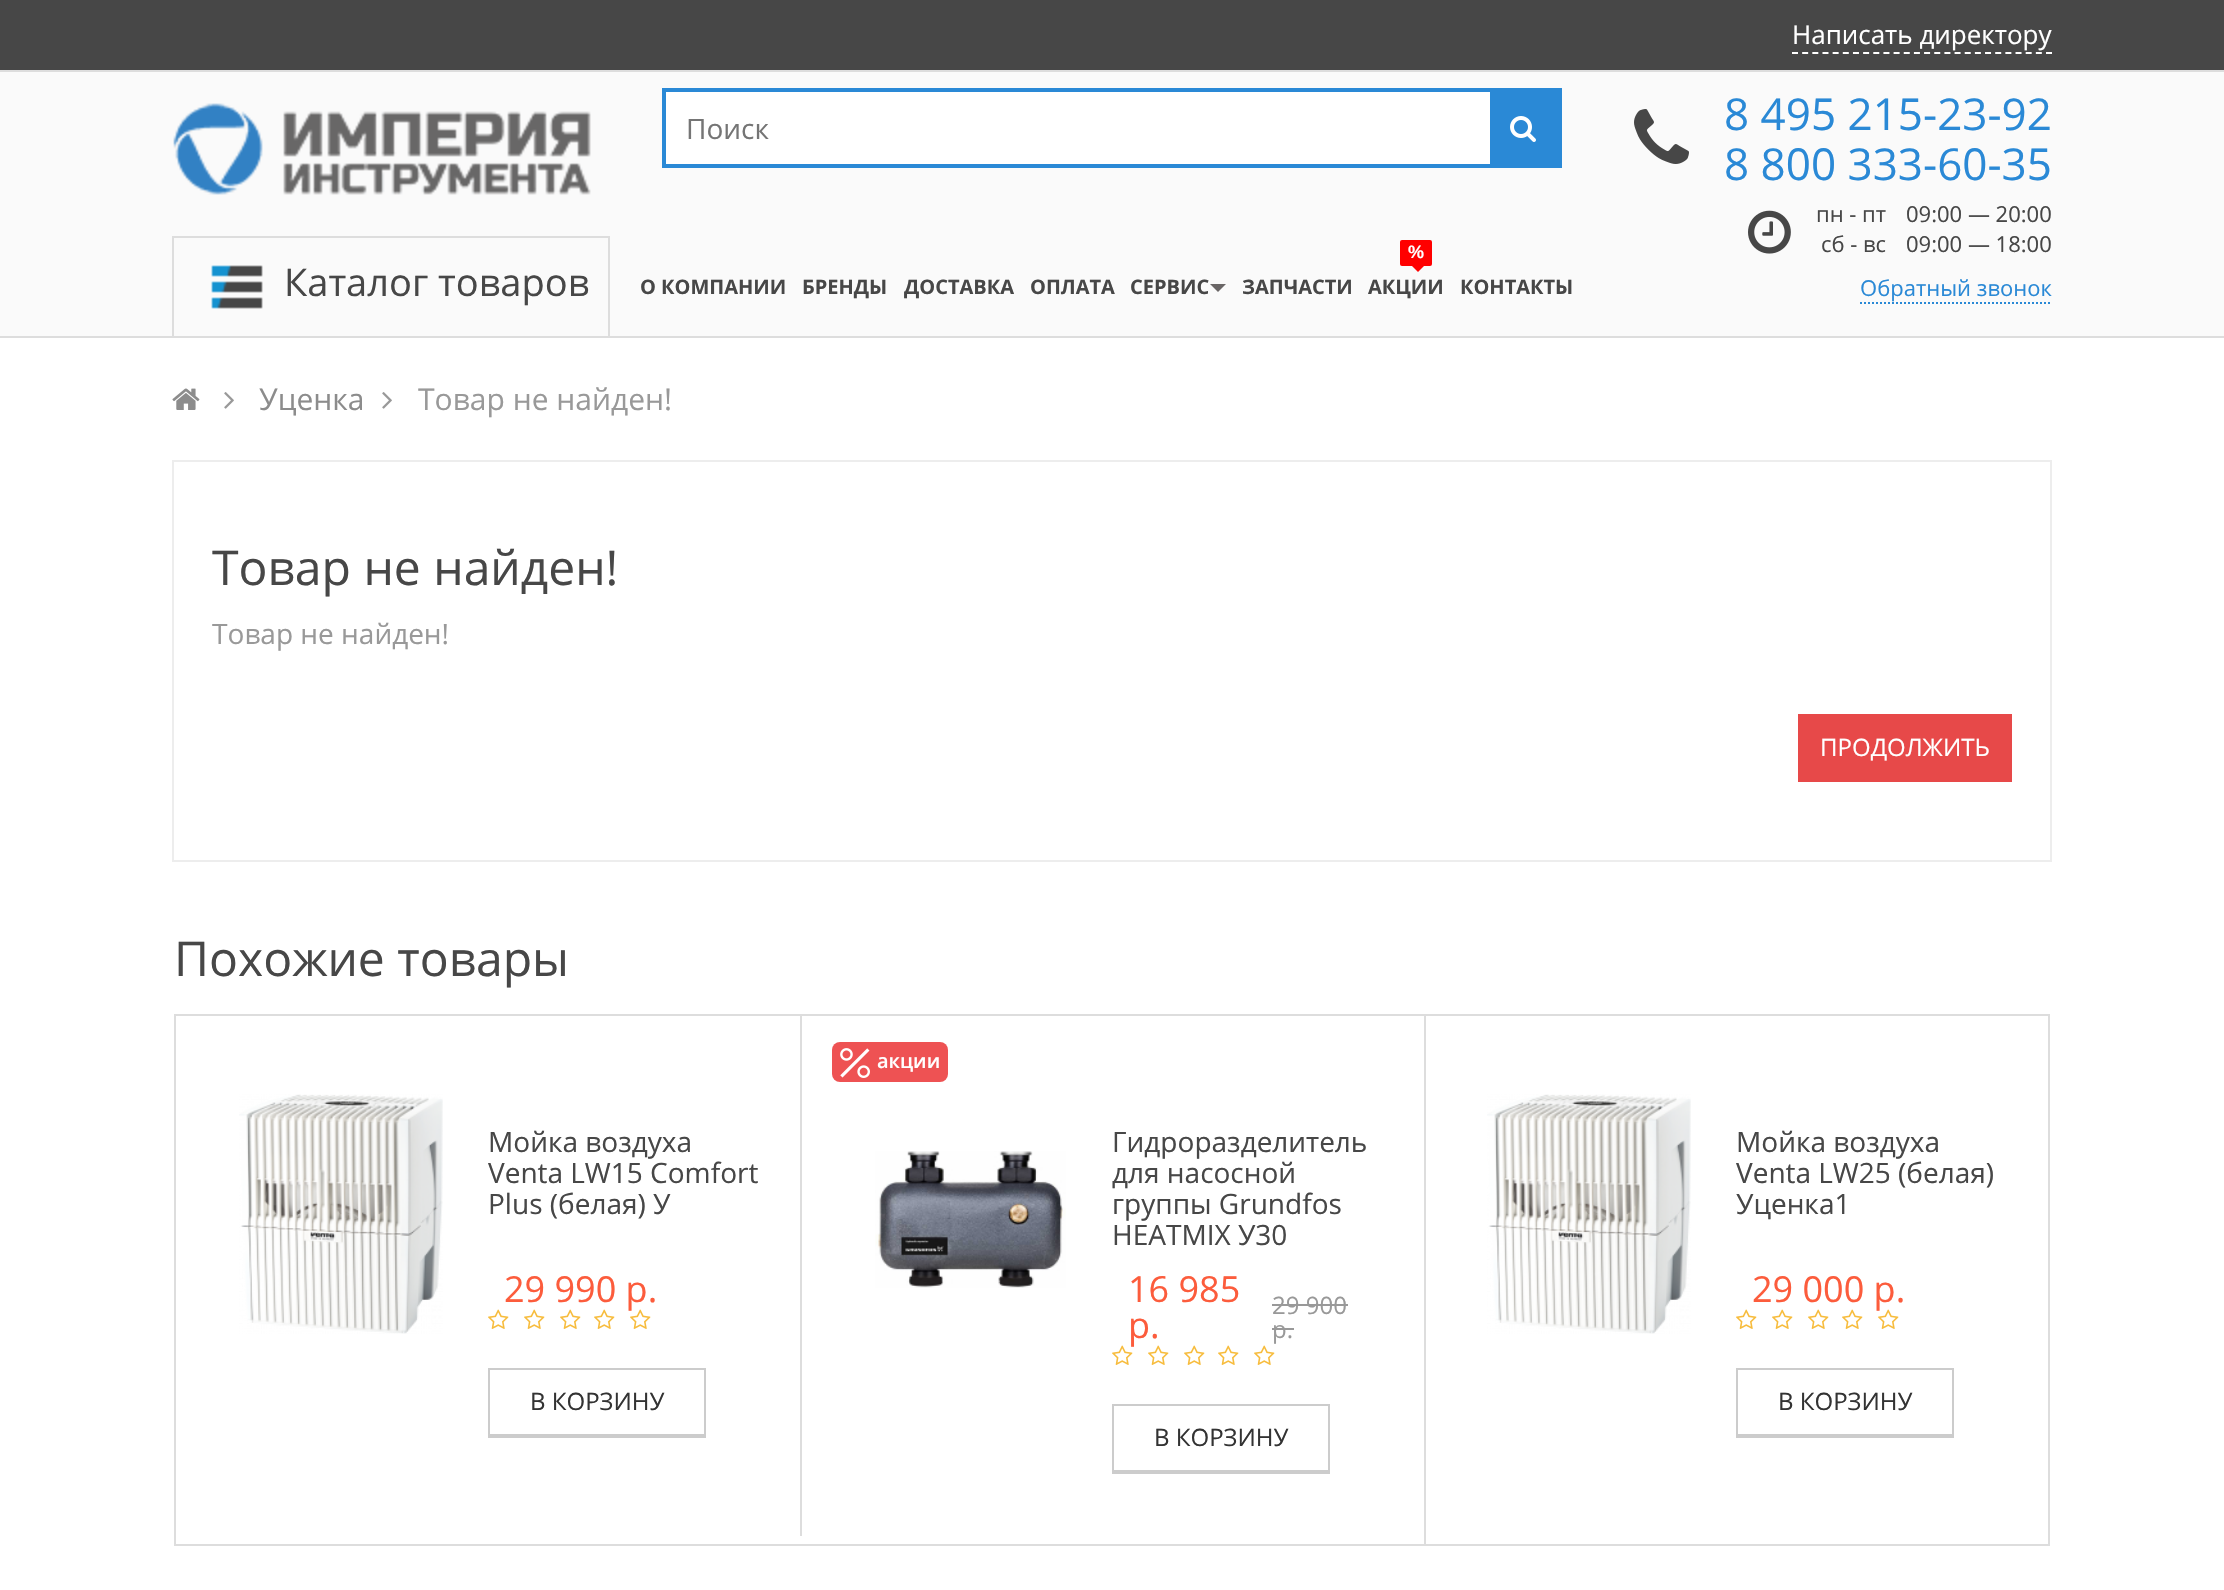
void draw(SkCanvas* canvas) {
  SkPaint paint;
  paint.setAntiAlias(true);
  auto face = [&](const char* family, int weight, float size, bool italic = false) {
    SkFontStyle style(weight, SkFontStyle::kNormal_Width,
      italic ? SkFontStyle::kItalic_Slant : SkFontStyle::kUpright_Slant);
    SkFont result(fontMgr->matchFamilyStyle(family, style), size);
    result.setSubpixel(true);
    return result;
  };
  auto paste = [&](const char* path, float x, float y, float w, float h) {
    auto image = SkImages::DeferredFromEncodedData(SkData::MakeFromFileName(path));
    canvas->drawImageRect(image, SkRect::MakeXYWH(x, y, w, h), SkSamplingOptions());
  };
  auto shape = [&](const char* data, bool evenOdd = false) {
    SkPath result = *SkParsePath::FromSVGString(data);
    if (evenOdd) result.setFillType(SkPathFillType::kEvenOdd);
    return result;
  };
  canvas->clear(0xffffffff);
  paint.setColor(0xff474747);
  canvas->drawRect(SkRect::MakeXYWH(0, 0, 2224, 70), paint);
  paint.setColor(0xffdddddd);
  canvas->drawRect(SkRect::MakeXYWH(0, 70, 2224, 2), paint);
  paint.setStroke(true);
  paint.setStrokeWidth(2);
  paint.setColor(0xffffffff);
  paint.setPathEffect(SkDashPathEffect::Make({{6, 4.16f}}, 0));
  canvas->drawPath(shape("M1792 53H2052"), paint);
  paint.setPathEffect(nullptr);
  paint.setStroke(false);
  {
    const struct { float x, y, w, h; SkColor color; } items[] = {
      {0, 72, 2224, 264, 0xfffafafa},
      {0, 336, 2224, 2, 0xffdddddd},
      {662, 88, 900, 4, 0xff2a89d6},
      {662, 164, 900, 4, 0xff2a89d6},
      {666, 92, 824, 72, 0xffffffff},
      {662, 92, 4, 72, 0xff2a89d6},
      {1490, 92, 72, 72, 0xff2a89d6},
    };
    for (auto [x, y, w, h, color] : items) {
      paint.setColor(color);
      canvas->drawRect(SkRect::MakeXYWH(x, y, w, h), paint);
    }
  }
  paste("img/1.png", 1510, 116, 26, 26);
  paste("img/2.png", 1634, 109, 55, 55);
  paste("img/3.png", 1748, 210, 43, 44);
  paint.setStroke(true);
  paint.setPathEffect(SkDashPathEffect::Make({{2, 2}}, 0));
  canvas->drawPath(shape("M1860 303H2052"), paint);
  paint.setPathEffect(nullptr);
  paste("img/4.png", 173, 103, 418, 92);
  paste("img/5.png", 211, 265, 52, 44);
  paint.setStroke(false);
  {
    const struct { float x, y, w, h; SkColor color; } items[] = {
      {172, 236, 438, 2, 0xffdddddd},
      {608, 236, 2, 100, 0xffdddddd},
      {172, 236, 2, 100, 0xffdddddd},
    };
    for (auto [x, y, w, h, color] : items) {
      paint.setColor(color);
      canvas->drawRect(SkRect::MakeXYWH(x, y, w, h), paint);
    }
  }
  paint.setColor(0xff6a6666);
  canvas->drawPath(shape("M1210 284H1226L1218 292Z"), paint);
  paint.setColor(0xffff0000);
  canvas->drawRoundRect(SkRect::MakeXYWH(1400, 240, 32, 26), 2, 2, paint);
  canvas->drawPath(shape("M1410 264H1426L1418 272Z"), paint);
  paste("img/6.png", 172, 388, 28, 22);
  paste("img/7.png", 224, 392, 10, 17);
  paste("img/7.png", 382, 392, 10, 17);
  paint.setStroke(true);
  paint.setColor(0xffededed);
  canvas->drawRect(SkRect::MakeXYWH(173, 461, 1878, 400), paint);
  paint.setStroke(false);
  paint.setColor(0xffe74949);
  canvas->drawRect(SkRect::MakeXYWH(1798, 714, 214, 68), paint);
  paint.setStroke(true);
  paint.setColor(0xffdddddd);
  canvas->drawRect(SkRect::MakeXYWH(175, 1015, 1874, 530), paint);
  paste("img/8.png", 239, 1094, 204, 240);
  paint.setStroke(false);
  {
    const struct { float x, y, w, h; SkColor color; } items[] = {
      {488, 1368, 218, 2, 0xffcccccc},
      {704, 1368, 2, 70, 0xffcccccc},
      {488, 1434, 218, 4, 0xffcccccc},
      {488, 1368, 2, 70, 0xffcccccc},
      {800, 1016, 2, 520, 0xffdddddd},
    };
    for (auto [x, y, w, h, color] : items) {
      paint.setColor(color);
      canvas->drawRect(SkRect::MakeXYWH(x, y, w, h), paint);
    }
  }
  paint.setColor(0xffee5253);
  canvas->drawRoundRect(SkRect::MakeXYWH(832, 1042, 116, 40), 8, 8, paint);
  paste("img/11.png", 840, 1048, 30, 30);
  paint.setColor(0xffdddddd);
  canvas->drawRect(SkRect::MakeXYWH(1424, 1016, 2, 528), paint);
  paste("img/12.png", 875, 1151, 191, 137);
  paint.setColor(0xff999999);
  canvas->drawRect(SkRect::MakeXYWH(1272, 1304, 76, 2), paint);
  canvas->drawRect(SkRect::MakeXYWH(1272, 1328, 22, 2), paint);
  paste("img/9.png", 1184, 1345, 21, 20);
  paste("img/9.png", 1218, 1345, 21, 20);
  paste("img/9.png", 1254, 1345, 21, 20);
  {
    const struct { float x, y, w, h; SkColor color; } items[] = {
      {1112, 1404, 218, 2, 0xffcccccc},
      {1328, 1404, 2, 70, 0xffcccccc},
      {1112, 1470, 218, 4, 0xffcccccc},
      {1112, 1404, 2, 70, 0xffcccccc},
    };
    for (auto [x, y, w, h, color] : items) {
      paint.setColor(color);
      canvas->drawRect(SkRect::MakeXYWH(x, y, w, h), paint);
    }
  }
  paste("img/8.png", 1487, 1094, 204, 240);
  {
    const struct { float x, y, w, h; SkColor color; } items[] = {
      {1736, 1368, 218, 2, 0xffcccccc},
      {1952, 1368, 2, 70, 0xffcccccc},
      {1736, 1434, 218, 4, 0xffcccccc},
      {1736, 1368, 2, 70, 0xffcccccc},
    };
    for (auto [x, y, w, h, color] : items) {
      paint.setColor(color);
      canvas->drawRect(SkRect::MakeXYWH(x, y, w, h), paint);
    }
  }
  auto f0 = face("Open Sans", 400, 26);
  paint.setColor(0xffffffff);
  canvas->drawString("Написать директору", 1792, 44, f0, paint);
  auto f1 = face("Open Sans", 400, 28);
  paint.setColor(0xff757575);
  canvas->drawString("Поиск", 686, 139, f1, paint);
  auto f2 = face("Open Sans", 400, 44);
  paint.setColor(0xff2a89d6);
  canvas->drawString("8 495 215-23-92", 1724, 130, f2, paint);
  canvas->drawString("8 800 333-60-35", 1724, 180, f2, paint);
  auto f3 = face("Open Sans", 400, 22);
  paint.setColor(0xff474747);
  {
    const struct { const char* s; float x, y; } items[] = {
      {"пн - пт", 1816, 222},
      {"09:00 — 20:00", 1906, 222},
      {"сб - вс", 1821, 252},
      {"09:00 — 18:00", 1906, 252},
    };
    for (auto [s, x, y] : items) {
      canvas->drawString(s, x, y, f3, paint);
    }
  }
  paint.setColor(0xff2a89d6);
  canvas->drawString("Обратный звонок", 1860, 296, f3, paint);
  auto f4 = face("Open Sans", 400, 38);
  paint.setColor(0xff474747);
  canvas->drawString("Каталог товаров", 284, 296, f4, paint);
  auto f5 = face("Open Sans", 700, 20);
  {
    const struct { const char* s; float x, y; } items[] = {
      {"О КОМПАНИИ", 640, 294},
      {"БРЕНДЫ", 802, 294},
      {"ДОСТАВКА", 904, 294},
      {"ОПЛАТА", 1030, 294},
      {"СЕРВИС", 1130, 294},
      {"ЗАПЧАСТИ", 1242, 294},
    };
    for (auto [s, x, y] : items) {
      canvas->drawString(s, x, y, f5, paint);
    }
  }
  auto f6 = face("Liberation Sans", 700, 18);
  paint.setColor(0xffffffff);
  canvas->drawString("%", 1408, 258, f6, paint);
  paint.setColor(0xff474747);
  canvas->drawString("АКЦИИ", 1368, 294, f5, paint);
  canvas->drawString("КОНТАКТЫ", 1460, 294, f5, paint);
  auto f7 = face("Open Sans", 400, 30);
  paint.setColor(0xff8c8c8c);
  canvas->drawString("Уценка", 259, 410, f7, paint);
  paint.setColor(0xff999999);
  canvas->drawString("Товар не найден!", 418, 410, f7, paint);
  auto f8 = face("Open Sans", 400, 48);
  paint.setColor(0xff474747);
  canvas->drawString("Товар не найден!", 212, 585, f8, paint);
  paint.setColor(0xff999999);
  canvas->drawString("Товар не найден!", 212, 644, f1, paint);
  auto f9 = face("Open Sans", 400, 24);
  paint.setColor(0xffffffff);
  canvas->drawString("ПРОДОЛЖИТЬ", 1820, 756, f9, paint);
  paint.setColor(0xff474747);
  canvas->drawString("Похожие товары", 174, 976, f8, paint);
  {
    const struct { const char* s; float x, y; } items[] = {
      {"Мойка воздуха", 488, 1152},
      {"Venta LW15 Comfort", 488, 1183},
      {"Plus (белая) У", 488, 1214},
    };
    for (auto [s, x, y] : items) {
      canvas->drawString(s, x, y, f1, paint);
    }
  }
  auto f10 = face("Open Sans", 400, 36);
  paint.setColor(0xfffc5c3c);
  canvas->drawString("29 990 р.", 504, 1302, f10, paint);
  paste("img/9.png", 488, 1309, 21, 20);
  paste("img/9.png", 524, 1309, 21, 20);
  paste("img/9.png", 560, 1309, 21, 20);
  paste("img/9.png", 594, 1309, 21, 20);
  paste("img/10.png", 630, 1309, 21, 20);
  paint.setColor(0xff333333);
  canvas->drawString("В КОРЗИНУ", 530, 1410, f9, paint);
  auto f11 = face("Open Sans", 600, 20);
  paint.setColor(0xffffffff);
  canvas->drawString("акции", 877, 1068, f11, paint);
  paint.setColor(0xff474747);
  {
    const struct { const char* s; float x, y; } items[] = {
      {"Гидроразделитель", 1112, 1152},
      {"для насосной", 1112, 1183},
      {"группы Grundfos", 1112, 1214},
      {"HEATMIX У30", 1112, 1245},
    };
    for (auto [s, x, y] : items) {
      canvas->drawString(s, x, y, f1, paint);
    }
  }
  paint.setColor(0xfffc5c3c);
  canvas->drawString("16 985", 1128, 1302, f10, paint);
  canvas->drawString("р.", 1128, 1338, f10, paint);
  paint.setColor(0xff999999);
  canvas->drawString("29 900", 1272, 1314, f9, paint);
  canvas->drawString("р.", 1272, 1338, f9, paint);
  paste("img/13.png", 1112, 1345, 21, 20);
  paste("img/9.png", 1148, 1345, 21, 20);
  paint.setColor(0xff333333);
  canvas->drawString("В КОРЗИНУ", 1154, 1446, f9, paint);
  paint.setColor(0xff474747);
  {
    const struct { const char* s; float x, y; } items[] = {
      {"Мойка воздуха", 1736, 1152},
      {"Venta LW25 (белая)", 1736, 1183},
      {"Уценка1", 1736, 1214},
    };
    for (auto [s, x, y] : items) {
      canvas->drawString(s, x, y, f1, paint);
    }
  }
  paint.setColor(0xfffc5c3c);
  canvas->drawString("29 000 р.", 1752, 1302, f10, paint);
  paste("img/9.png", 1736, 1309, 21, 20);
  paste("img/9.png", 1772, 1309, 21, 20);
  paste("img/9.png", 1808, 1309, 21, 20);
  paste("img/9.png", 1842, 1309, 21, 20);
  paste("img/14.png", 1878, 1309, 21, 20);
  paint.setColor(0xff333333);
  canvas->drawString("В КОРЗИНУ", 1778, 1410, f9, paint);
}
